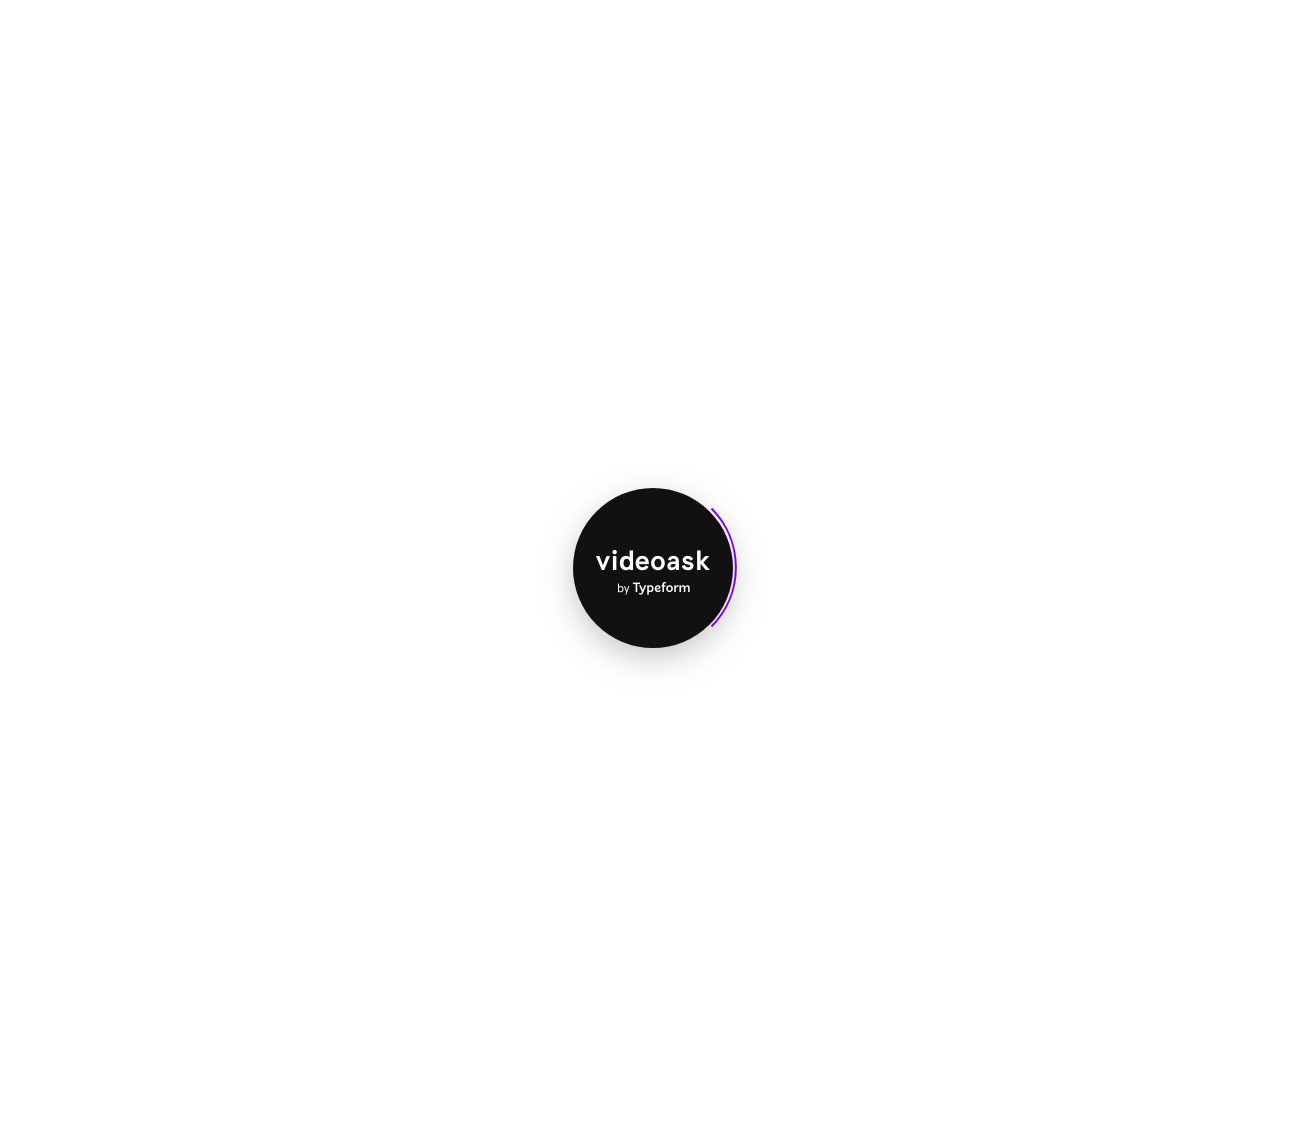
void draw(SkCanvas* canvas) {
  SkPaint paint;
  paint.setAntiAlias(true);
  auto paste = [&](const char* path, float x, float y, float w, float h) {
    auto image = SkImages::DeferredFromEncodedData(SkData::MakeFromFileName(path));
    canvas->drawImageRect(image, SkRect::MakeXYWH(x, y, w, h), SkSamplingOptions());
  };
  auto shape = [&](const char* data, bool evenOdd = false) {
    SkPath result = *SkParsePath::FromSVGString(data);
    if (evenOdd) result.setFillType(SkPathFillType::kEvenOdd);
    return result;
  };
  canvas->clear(0xffffffff);
  paint.setColor(0x36000000);
  paint.setMaskFilter(SkMaskFilter::MakeBlur(kNormal_SkBlurStyle, 15));
  canvas->drawRoundRect(SkRect::MakeXYWH(573, 498, 160, 160), 80, 80, paint);
  paint.setMaskFilter(nullptr);
  paint.setColor(0xff111111);
  canvas->drawCircle(653, 568, 80, paint);
  paste("img/1.png", 596, 549, 114, 46);
  paint.setStroke(true);
  paint.setStrokeWidth(2);
  paint.setColor(0xff7d00fe);
  canvas->drawPath(shape("M711.5 508.5C744 541 744 594 711.5 626.5"), paint);
}
